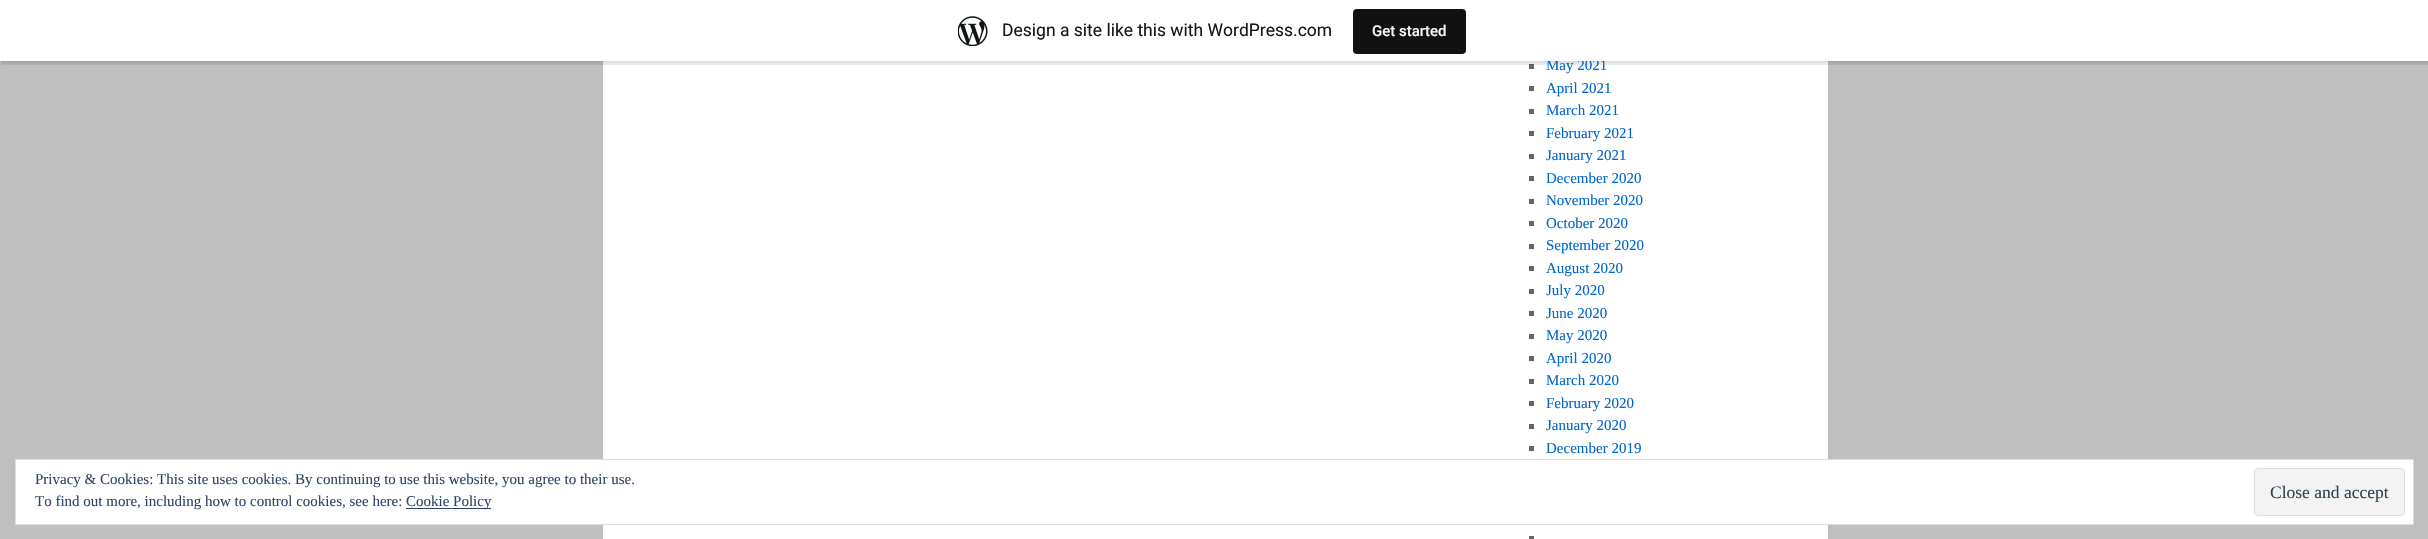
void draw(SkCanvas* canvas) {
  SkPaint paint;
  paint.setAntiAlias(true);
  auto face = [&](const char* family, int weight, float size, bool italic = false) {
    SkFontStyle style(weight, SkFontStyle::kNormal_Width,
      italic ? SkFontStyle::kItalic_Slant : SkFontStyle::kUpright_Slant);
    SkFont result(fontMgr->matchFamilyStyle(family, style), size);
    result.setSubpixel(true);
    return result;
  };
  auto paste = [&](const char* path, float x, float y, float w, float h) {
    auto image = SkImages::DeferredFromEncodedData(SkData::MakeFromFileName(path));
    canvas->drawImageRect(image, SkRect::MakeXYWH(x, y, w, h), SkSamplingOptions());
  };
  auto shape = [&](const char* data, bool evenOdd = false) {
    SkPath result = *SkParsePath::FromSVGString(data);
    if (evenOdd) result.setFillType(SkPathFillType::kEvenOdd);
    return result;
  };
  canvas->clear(0xffbfbfbf);
  paint.setColor(0xffffffff);
  canvas->drawRect(SkRect::MakeXYWH(603, 61, 1225, 478), paint);
  paint.setColor(0xff666666);
  canvas->drawRect(SkRect::MakeXYWH(1529, 64, 5, 5), paint);
  paint.setColor(0x0d000000);
  paint.setMaskFilter(SkMaskFilter::MakeBlur(kNormal_SkBlurStyle, 1));
  canvas->drawRect(SkRect::MakeXYWH(0, 1, 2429, 62), paint);
  paint.setMaskFilter(nullptr);
  paint.setColor(0x14000000);
  canvas->drawPath(shape("M1 61V65H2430V4H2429V61Z"), paint);
  {
    const struct { float x, y, w, h; SkColor color; } items[] = {
      {1529, 86, 5, 5, 0xff666666},
      {1529, 109, 5, 5, 0xff666666},
      {1529, 131, 5, 5, 0xff666666},
      {1529, 154, 5, 5, 0xff666666},
      {1529, 176, 5, 5, 0xff666666},
      {1529, 199, 5, 5, 0xff666666},
      {1529, 221, 5, 5, 0xff666666},
      {1529, 244, 5, 5, 0xff666666},
      {1529, 266, 5, 5, 0xff666666},
      {1529, 289, 5, 5, 0xff666666},
      {1529, 311, 5, 5, 0xff666666},
      {1529, 334, 5, 5, 0xff666666},
      {1529, 356, 5, 5, 0xff666666},
      {1529, 379, 5, 5, 0xff666666},
      {1529, 401, 5, 5, 0xff666666},
      {1529, 424, 5, 5, 0xff666666},
      {1529, 446, 5, 5, 0xff666666},
      {1529, 536, 5, 3, 0xff666666},
    };
    for (auto [x, y, w, h, color] : items) {
      paint.setColor(color);
      canvas->drawRect(SkRect::MakeXYWH(x, y, w, h), paint);
    }
  }
  paint.setColor(0xffffffff);
  canvas->drawRect(SkRect::MakeXYWH(15.5f, 459.5f, 2398, 65), paint);
  paint.setStroke(true);
  paint.setStrokeWidth(1);
  paint.setColor(0xffdedede);
  canvas->drawRect(SkRect::MakeXYWH(15.5f, 459.5f, 2398, 65), paint);
  paint.setStroke(false);
  paint.setColor(0xff2e4467);
  canvas->drawRect(SkRect::MakeXYWH(406, 508, 85, 1), paint);
  paint.setColor(0xfff3f3f3);
  canvas->drawRoundRect(SkRect::MakeXYWH(2254.5f, 468.5f, 150, 47), 3.5f, 3.5f, paint);
  paint.setStroke(true);
  paint.setColor(0xffdedede);
  canvas->drawRoundRect(SkRect::MakeXYWH(2254.5f, 468.5f, 150, 47), 3.5f, 3.5f, paint);
  auto f0 = face("Liberation Serif", 400, 15);
  paint.setStroke(false);
  paint.setColor(0xff0066cc);
  canvas->drawString("May 2021", 1546, 70, f0, paint);
  paint.setColor(0xffffffff);
  canvas->drawRect(SkRect::MakeXYWH(0, 0, 2428, 61), paint);
  paste("img/1.png", 958, 16, 30, 30);
  auto f1 = face("Roboto", 400, 17.5f);
  paint.setColor(0xff171717);
  canvas->drawString("Design a site like this with WordPress.com", 1002, 36, f1, paint);
  paint.setColor(0xff111111);
  canvas->drawRoundRect(SkRect::MakeXYWH(1353, 9, 113, 45), 4, 4, paint);
  auto f2 = face("Roboto", 500, 15);
  paint.setColor(0xfff6f7f7);
  canvas->drawString("Get started", 1372, 36, f2, paint);
  paint.setColor(0xff0066cc);
  {
    const struct { const char* s; float x, y; } items[] = {
      {"April 2021", 1546, 93},
      {"March 2021", 1546, 115},
      {"February 2021", 1546, 138},
      {"January 2021", 1546, 160},
      {"December 2020", 1546, 183},
      {"November 2020", 1546, 205},
      {"October 2020", 1546, 228},
      {"September 2020", 1546, 250},
      {"August 2020", 1546, 273},
      {"July 2020", 1546, 295},
      {"June 2020", 1546, 318},
      {"May 2020", 1546, 340},
      {"April 2020", 1546, 363},
      {"March 2020", 1546, 385},
      {"February 2020", 1546, 408},
      {"January 2020", 1546, 430},
      {"December 2019", 1546, 453},
    };
    for (auto [s, x, y] : items) {
      canvas->drawString(s, x, y, f0, paint);
    }
  }
  paint.setColor(0xff2e4467);
  {
    const struct { const char* s; float x, y; } items[] = {
      {"Privacy & Cookies: This site uses cookies. By continuing to use this website, you agree to their use.", 35, 484},
      {"To find out more, including how to control cookies, see here:", 35, 506},
      {"Cookie Policy", 406, 506},
    };
    for (auto [s, x, y] : items) {
      canvas->drawString(s, x, y, f0, paint);
    }
  }
  auto f3 = face("Liberation Serif", 400, 17.5f);
  paint.setColor(0xff2e4453);
  canvas->drawString("Close and accept", 2270, 498, f3, paint);
}
